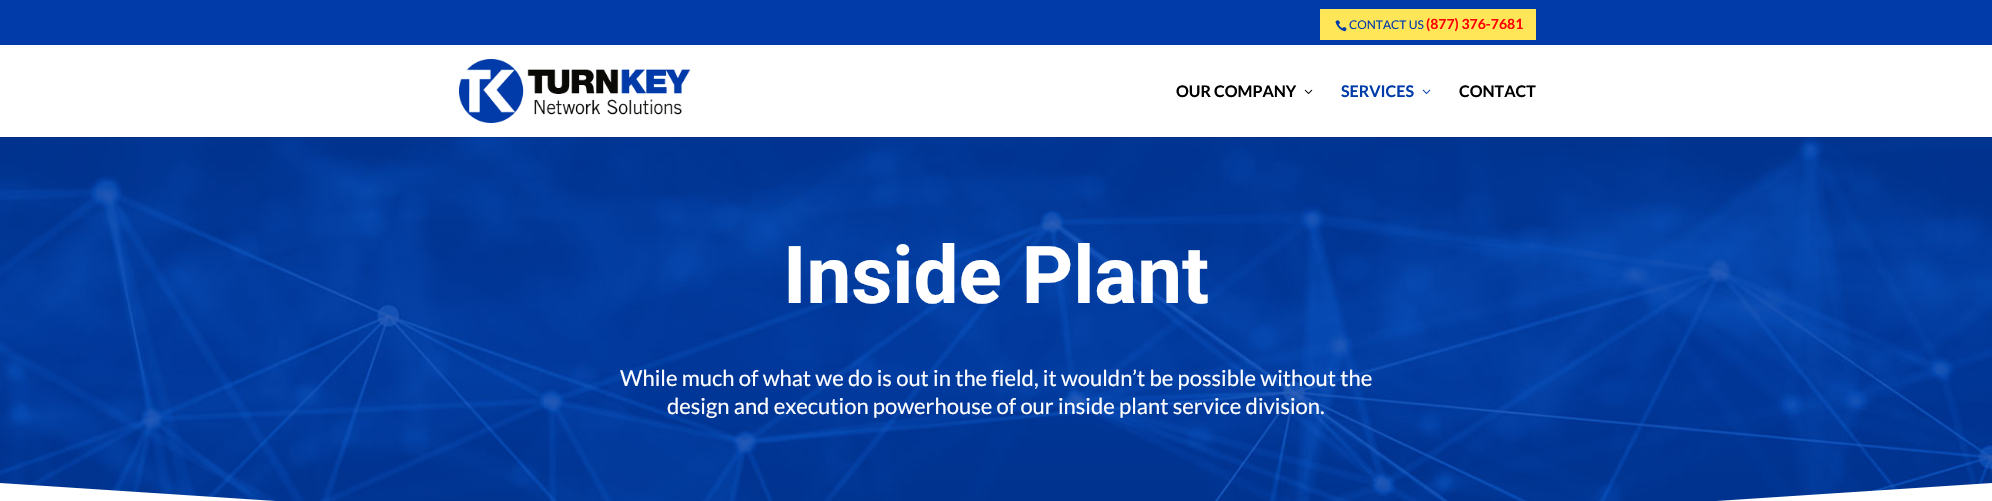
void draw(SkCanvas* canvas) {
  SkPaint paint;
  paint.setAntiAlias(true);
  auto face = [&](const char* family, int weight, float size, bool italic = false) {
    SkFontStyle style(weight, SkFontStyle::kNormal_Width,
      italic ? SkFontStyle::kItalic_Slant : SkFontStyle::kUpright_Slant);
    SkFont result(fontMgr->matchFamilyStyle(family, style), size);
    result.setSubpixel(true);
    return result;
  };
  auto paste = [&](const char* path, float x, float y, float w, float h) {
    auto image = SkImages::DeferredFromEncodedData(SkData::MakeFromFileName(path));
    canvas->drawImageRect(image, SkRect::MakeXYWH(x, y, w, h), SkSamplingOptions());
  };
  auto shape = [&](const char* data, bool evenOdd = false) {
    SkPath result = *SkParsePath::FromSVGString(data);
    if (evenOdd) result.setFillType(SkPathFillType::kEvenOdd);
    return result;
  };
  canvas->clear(0xffffffff);
  paint.setColor(0xff003ba9);
  canvas->drawRect(SkRect::MakeXYWH(0, 0, 1992, 45), paint);
  paint.setColor(0xffffe558);
  canvas->drawRect(SkRect::MakeXYWH(1320, 9, 216, 31), paint);
  paste("img/1.png", 1335, 20, 12, 12);
  paste("img/5.png", 0, 137, 1992, 364);
  paint.setColor(0x1a000000);
  canvas->drawRect(SkRect::MakeXYWH(0, 137, 1992, 1), paint);
  paste("img/2.png", 459, 59, 231, 64);
  paste("img/3.png", 1304, 89, 9, 5);
  paste("img/4.png", 1422, 89, 9, 5);
  paint.setColor(0xffffffff);
  canvas->drawPath(shape("M996 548L0 483V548H1992V483Z"), paint);
  auto f0 = face("Lato", 400, 12);
  paint.setColor(0xff003ba9);
  canvas->drawString("CONTACT US", 1349, 29, f0, paint);
  auto f1 = face("Lato", 700, 14);
  paint.setColor(0xffff0000);
  canvas->drawString("(877) 376-7681", 1426, 29, f1, paint);
  auto f2 = face("Lato", 700, 16);
  paint.setColor(0xff000000);
  canvas->drawString("OUR COMPANY", 1176, 97, f2, paint);
  paint.setColor(0xff003ba9);
  canvas->drawString("SERVICES", 1341, 97, f2, paint);
  paint.setColor(0xff000000);
  canvas->drawString("CONTACT", 1459, 97, f2, paint);
  auto f3 = face("Roboto", 700, 80);
  paint.setColor(0xffffffff);
  canvas->drawString("Inside Plant", 783, 303, f3, paint);
  auto f4 = face("Lato", 400, 22);
  canvas->drawString("While much of what we do is out in the field, it wouldn’t be possible without the", 620, 386, f4, paint);
  canvas->drawString("design and execution powerhouse of our inside plant service division.", 667, 414, f4, paint);
}
